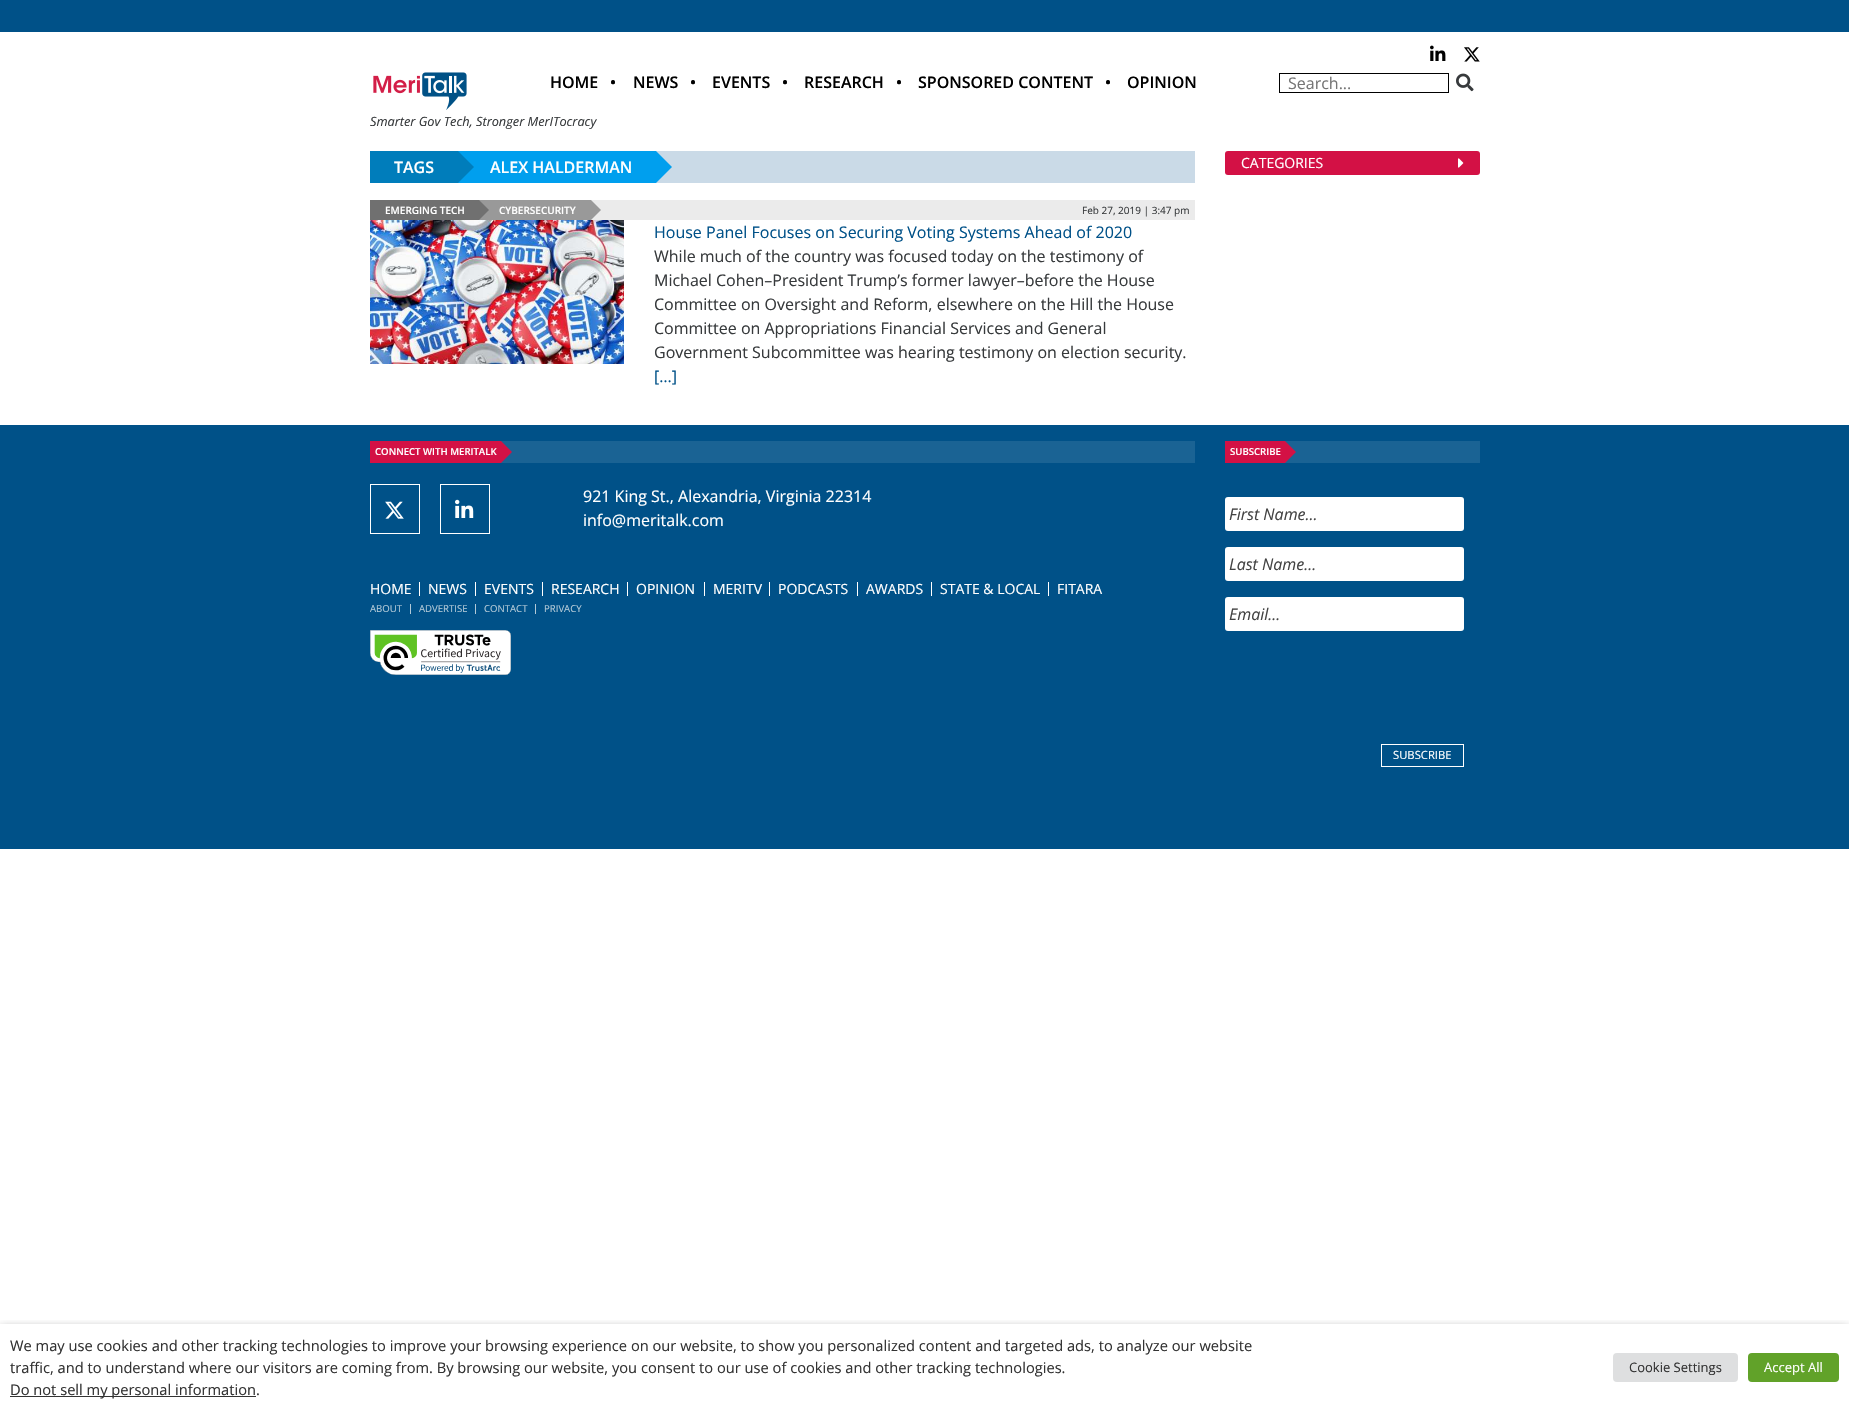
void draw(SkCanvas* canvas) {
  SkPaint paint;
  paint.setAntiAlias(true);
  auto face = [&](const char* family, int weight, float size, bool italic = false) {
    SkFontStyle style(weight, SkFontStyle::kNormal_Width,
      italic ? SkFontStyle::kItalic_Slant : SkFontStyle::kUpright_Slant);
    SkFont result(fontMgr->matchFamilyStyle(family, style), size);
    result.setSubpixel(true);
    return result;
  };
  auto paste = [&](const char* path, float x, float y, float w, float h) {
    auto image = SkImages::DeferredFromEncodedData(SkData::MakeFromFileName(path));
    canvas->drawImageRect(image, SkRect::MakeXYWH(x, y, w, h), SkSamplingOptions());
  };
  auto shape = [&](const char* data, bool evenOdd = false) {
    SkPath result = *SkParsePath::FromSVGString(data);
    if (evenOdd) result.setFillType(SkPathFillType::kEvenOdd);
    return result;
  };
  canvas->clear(0xffffffff);
  paint.setColor(0xff005188);
  canvas->drawRect(SkRect::MakeXYWH(0, 0, 1849, 32), paint);
  paste("img/1.png", 373, 72, 94, 38);
  paste("img/2.png", 1430, 45, 16, 16);
  paste("img/3.png", 1464, 47, 16, 15);
  paint.setStroke(true);
  paint.setStrokeWidth(1);
  paint.setColor(0xff000000);
  canvas->drawRect(SkRect::MakeXYWH(1279.5f, 73.5f, 169, 19), paint);
  paste("img/4.png", 1456, 73, 18, 19);
  paint.setStroke(false);
  {
    const struct { float x, y, w, h; SkColor color; } items[] = {
      {656, 151, 539, 32, 0xffcadae7},
      {370, 151, 88, 32, 0xff007dbb},
      {458, 151, 198, 32, 0xff009fee},
    };
    for (auto [x, y, w, h, color] : items) {
      paint.setColor(color);
      canvas->drawRect(SkRect::MakeXYWH(x, y, w, h), paint);
    }
  }
  paint.setColor(0xff007dbb);
  canvas->drawPath(shape("M458 183V151L474 167Z"), paint);
  paint.setColor(0xff009fee);
  canvas->drawPath(shape("M656 183V151L672 167Z"), paint);
  {
    const struct { float x, y, w, h; SkColor color; } items[] = {
      {591, 200, 604, 20, 0xffebebeb},
      {370, 200, 109, 20, 0xff707070},
      {479, 200, 112, 20, 0xff999999},
    };
    for (auto [x, y, w, h, color] : items) {
      paint.setColor(color);
      canvas->drawRect(SkRect::MakeXYWH(x, y, w, h), paint);
    }
  }
  paint.setColor(0xff707070);
  canvas->drawPath(shape("M479 220V200L489 210Z"), paint);
  paint.setColor(0xff999999);
  canvas->drawPath(shape("M591 220V200L601 210Z"), paint);
  paste("img/5.png", 370, 220, 254, 144);
  paint.setColor(0xffd31145);
  canvas->drawRoundRect(SkRect::MakeXYWH(1225, 151, 255, 24), 3, 3, paint);
  paste("img/6.png", 1458, 158, 6, 10);
  {
    const struct { float x, y, w, h; SkColor color; } items[] = {
      {0, 425, 1849, 424, 0xff005188},
      {501, 441, 694, 22, 0xff1a6394},
      {370, 441, 131, 22, 0xffd31145},
    };
    for (auto [x, y, w, h, color] : items) {
      paint.setColor(color);
      canvas->drawRect(SkRect::MakeXYWH(x, y, w, h), paint);
    }
  }
  canvas->drawPath(shape("M501 463V441L512 452Z"), paint);
  paint.setStroke(true);
  paint.setColor(0xffffffff);
  canvas->drawRect(SkRect::MakeXYWH(370.5f, 484.5f, 49, 49), paint);
  paste("img/7.png", 385, 501, 19, 18);
  canvas->drawRect(SkRect::MakeXYWH(440.5f, 484.5f, 49, 49), paint);
  paste("img/8.png", 455, 499, 19, 19);
  paint.setStroke(false);
  {
    const struct { float x, y, w, h; SkColor color; } items[] = {
      {419, 582, 1, 14, 0xffffffff},
      {475, 582, 1, 14, 0xffffffff},
      {542, 582, 1, 14, 0xffffffff},
      {627, 582, 1, 14, 0xffffffff},
      {704, 582, 1, 14, 0xffffffff},
      {769, 582, 1, 14, 0xffffffff},
      {857, 582, 1, 14, 0xffffffff},
      {931, 582, 1, 14, 0xffffffff},
      {1048, 582, 1, 14, 0xffffffff},
      {410, 604, 1, 10, 0xffb2c9d7},
      {475, 604, 1, 10, 0xffb2c9d7},
      {535, 604, 1, 10, 0xffb2c9d7},
    };
    for (auto [x, y, w, h, color] : items) {
      paint.setColor(color);
      canvas->drawRect(SkRect::MakeXYWH(x, y, w, h), paint);
    }
  }
  paste("img/9.png", 370, 630, 141, 45);
  paint.setColor(0xff1a6394);
  canvas->drawRect(SkRect::MakeXYWH(1285, 441, 195, 22), paint);
  paint.setColor(0xffd31145);
  canvas->drawRect(SkRect::MakeXYWH(1225, 441, 60, 22), paint);
  canvas->drawPath(shape("M1285 463V441L1296 452Z"), paint);
  paint.setColor(0xffffffff);
  canvas->drawRoundRect(SkRect::MakeXYWH(1225, 497, 239, 34), 3, 3, paint);
  canvas->drawRoundRect(SkRect::MakeXYWH(1225, 547, 239, 34), 3, 3, paint);
  canvas->drawRoundRect(SkRect::MakeXYWH(1225, 597, 239, 34), 3, 3, paint);
  paint.setStroke(true);
  canvas->drawRect(SkRect::MakeXYWH(1381.5f, 744.5f, 82, 22), paint);
  canvas->save();
  canvas->clipRect(SkRect::MakeXYWH(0, 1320, 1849, 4));
  paint.setStroke(false);
  paint.setColor(0x80000000);
  paint.setMaskFilter(SkMaskFilter::MakeBlur(kNormal_SkBlurStyle, 5));
  canvas->drawRect(SkRect::MakeXYWH(0, 1329, 1849, 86), paint);
  paint.setMaskFilter(nullptr);
  canvas->restore();
  paint.setColor(0xff333333);
  canvas->drawRect(SkRect::MakeXYWH(10, 1396, 246, 1), paint);
  paint.setColor(0xffdedfe0);
  canvas->drawRoundRect(SkRect::MakeXYWH(1613, 1353, 125, 29), 4, 4, paint);
  paint.setColor(0xff61a229);
  canvas->drawRoundRect(SkRect::MakeXYWH(1748, 1353, 91, 29), 4, 4, paint);
  auto f0 = face("Open Sans", 600, 16);
  paint.setColor(0xff000000);
  {
    const struct { const char* s; float x, y; } items[] = {
      {"HOME", 550, 88},
      {"•", 610, 88},
      {"NEWS", 633, 88},
      {"•", 690, 88},
      {"EVENTS", 712, 88},
      {"•", 782, 88},
      {"RESEARCH", 804, 88},
      {"•", 896, 88},
      {"SPONSORED CONTENT", 918, 88},
      {"•", 1105, 88},
      {"OPINION", 1127, 88},
    };
    for (auto [s, x, y] : items) {
      canvas->drawString(s, x, y, f0, paint);
    }
  }
  auto f1 = face("Open Sans", 400, 16);
  paint.setColor(0xff757575);
  canvas->drawString("Search...", 1288, 89, f1, paint);
  auto f2 = face("Open Sans", 400, 12.75f, true);
  paint.setColor(0xff373a3c);
  canvas->drawString("Smarter Gov Tech, Stronger MerITocracy", 370, 126, f2, paint);
  paint.setColor(0xffffffff);
  canvas->drawString("TAGS", 394, 173, f0, paint);
  canvas->drawString("ALEX HALDERMAN", 490, 173, f0, paint);
  auto f3 = face("Open Sans", 600, 10);
  canvas->drawString("EMERGING TECH", 385, 214, f3, paint);
  canvas->drawString("CYBERSECURITY", 499, 214, f3, paint);
  auto f4 = face("Open Sans", 400, 10);
  paint.setColor(0xff373a3c);
  canvas->drawString("Feb 27, 2019 | 3:47 pm", 1082, 214, f4, paint);
  paint.setColor(0xff005188);
  canvas->drawString("House Panel Focuses on Securing Voting Systems Ahead of 2020", 654, 238, f1, paint);
  paint.setColor(0xff373a3c);
  {
    const struct { const char* s; float x, y; } items[] = {
      {"While much of the country was focused today on the testimony of", 654, 262},
      {"Michael Cohen–President Trump’s former lawyer–before the House", 654, 286},
      {"Committee on Oversight and Reform, elsewhere on the Hill the House", 654, 310},
      {"Committee on Appropriations Financial Services and General", 654, 334},
      {"Government Subcommittee was hearing testimony on election security.", 654, 358},
    };
    for (auto [s, x, y] : items) {
      canvas->drawString(s, x, y, f1, paint);
    }
  }
  paint.setColor(0xff005188);
  canvas->drawString("[…]", 654, 382, f1, paint);
  auto f5 = face("Open Sans", 400, 14);
  paint.setColor(0xffffffff);
  canvas->drawString("CATEGORIES", 1241, 168, f5, paint);
  auto f6 = face("Open Sans", 600, 9.6f);
  canvas->drawString("CONNECT WITH MERITALK", 375, 455, f6, paint);
  canvas->drawString("921 King St., Alexandria, Virginia 22314", 583, 502, f1, paint);
  canvas->drawString("info@meritalk.com", 583, 526, f1, paint);
  {
    const struct { const char* s; float x, y; } items[] = {
      {"HOME", 370, 594},
      {"NEWS", 428, 594},
      {"EVENTS", 484, 594},
      {"RESEARCH", 551, 594},
      {"OPINION", 636, 594},
      {"MERITV", 713, 594},
      {"PODCASTS", 778, 594},
      {"AWARDS", 866, 594},
      {"STATE & LOCAL", 940, 594},
      {"FITARA", 1057, 594},
    };
    for (auto [s, x, y] : items) {
      canvas->drawString(s, x, y, f5, paint);
    }
  }
  auto f7 = face("Open Sans", 400, 9.6f);
  paint.setColor(0xffb2c9d7);
  {
    const struct { const char* s; float x, y; } items[] = {
      {"ABOUT", 370, 612},
      {"ADVERTISE", 419, 612},
      {"CONTACT", 484, 612},
      {"PRIVACY", 544, 612},
    };
    for (auto [s, x, y] : items) {
      canvas->drawString(s, x, y, f7, paint);
    }
  }
  paint.setColor(0xffffffff);
  canvas->drawString("SUBSCRIBE", 1230, 455, f6, paint);
  auto f8 = face("Open Sans", 400, 16, true);
  paint.setColor(0xff434343);
  {
    const struct { const char* s; float x, y; } items[] = {
      {"First Name...", 1229, 520},
      {"Last Name...", 1229, 570},
      {"Email...", 1229, 620},
    };
    for (auto [s, x, y] : items) {
      canvas->drawString(s, x, y, f8, paint);
    }
  }
  auto f9 = face("Open Sans", 400, 11.25f);
  paint.setColor(0xffffffff);
  canvas->drawString("SUBSCRIBE", 1393, 759, f9, paint);
  auto f10 = face("Open Sans", 400, 14.67f);
  paint.setColor(0xff333333);
  {
    const struct { const char* s; float x, y; } items[] = {
      {"We may use cookies and other tracking technologies to improve your browsing experience on our website, to show you personalized content and targeted ads, to analyze our website", 10, 1351},
      {"traffic, and to understand where our visitors are coming from. By browsing our website, you consent to our use of cookies and other tracking technologies.", 10, 1373},
      {"Do not sell my personal information.", 10, 1395},
    };
    for (auto [s, x, y] : items) {
      canvas->drawString(s, x, y, f10, paint);
    }
  }
  auto f11 = face("Open Sans", 400, 13);
  canvas->drawString("Cookie Settings", 1629, 1372, f11, paint);
  paint.setColor(0xffffffff);
  canvas->drawString("Accept All", 1764, 1372, f11, paint);
}
